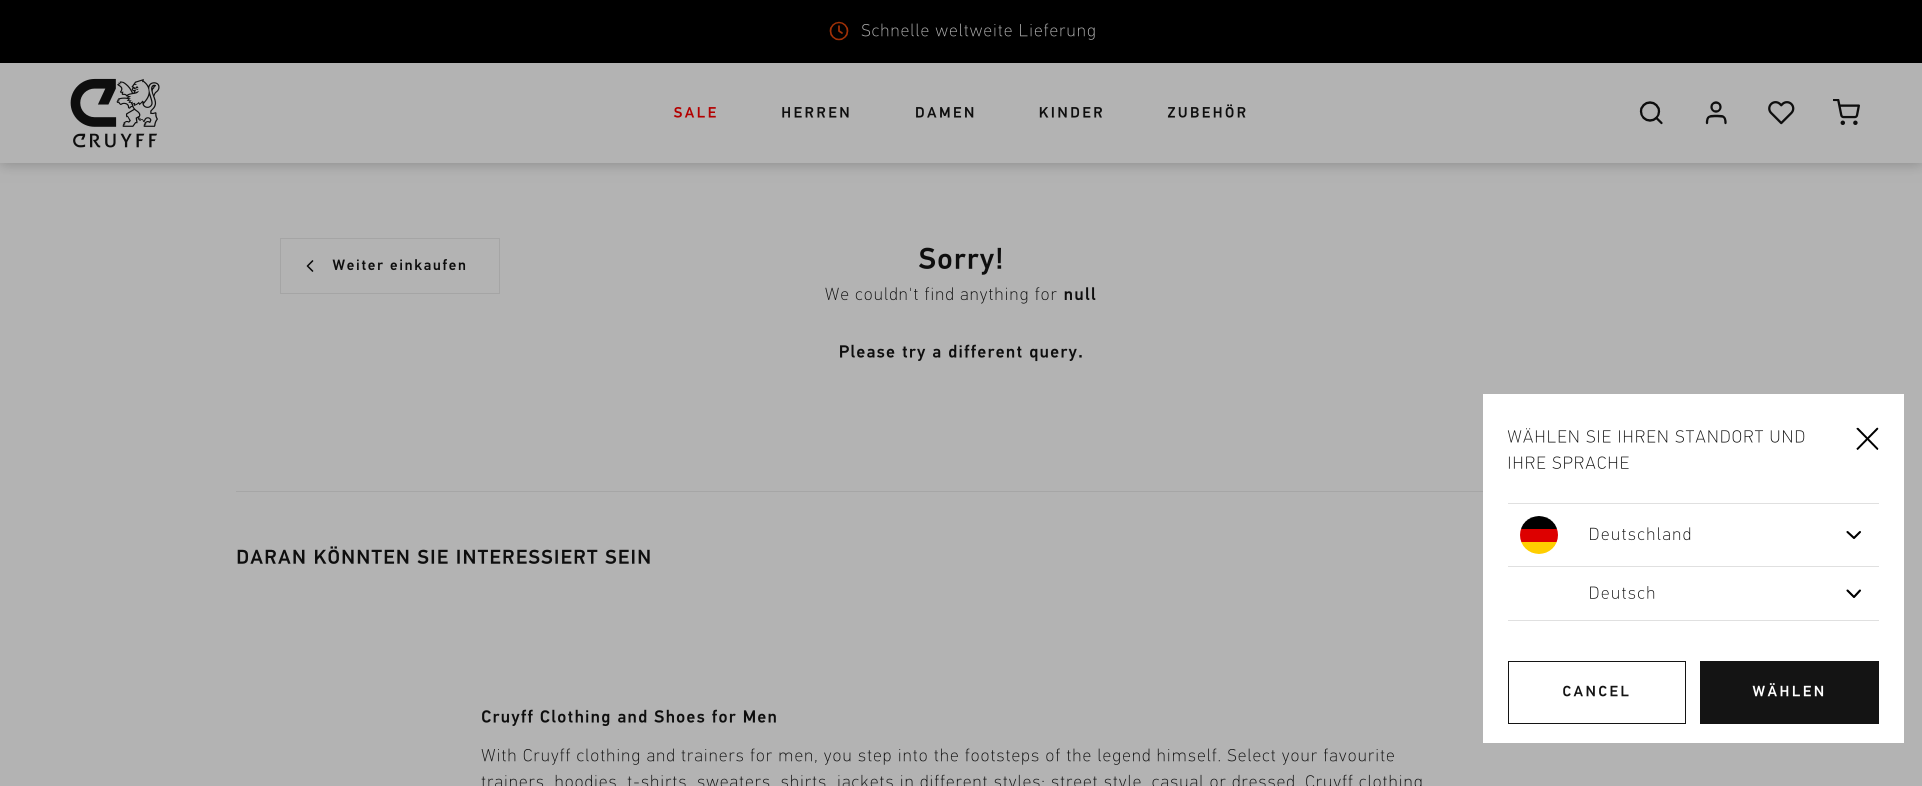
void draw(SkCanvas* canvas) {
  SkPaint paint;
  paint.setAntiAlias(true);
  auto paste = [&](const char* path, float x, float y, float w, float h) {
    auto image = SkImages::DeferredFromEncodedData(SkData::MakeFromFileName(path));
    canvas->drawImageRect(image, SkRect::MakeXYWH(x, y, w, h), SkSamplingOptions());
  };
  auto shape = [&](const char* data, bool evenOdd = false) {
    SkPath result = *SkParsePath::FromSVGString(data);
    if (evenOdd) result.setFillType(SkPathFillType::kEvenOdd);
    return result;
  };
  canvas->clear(0xffb3b3b3);
  paint.setColor(0x33000000);
  paint.setMaskFilter(SkMaskFilter::MakeBlur(kNormal_SkBlurStyle, 6));
  canvas->drawRect(SkRect::MakeXYWH(0, 3, 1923, 162), paint);
  paint.setMaskFilter(nullptr);
  paint.setColor(0xff000000);
  canvas->drawRect(SkRect::MakeXYWH(0, 0, 1922, 63), paint);
  paint.setStroke(true);
  paint.setStrokeWidth(1.7f);
  paint.setColor(0xffa13006);
  canvas->drawCircle(839, 31, 8.5f, paint);
  paint.setStrokeCap(SkPaint::kRound_Cap);
  paint.setStrokeJoin(SkPaint::kRound_Join);
  canvas->drawPath(shape("M839 26V31L842 33"), paint);
  paste("img/1.png", 861, 23, 234, 17);
  paint.setStroke(false);
  paint.setColor(0xffb3b3b3);
  canvas->drawRect(SkRect::MakeXYWH(0, 63, 1922, 100), paint);
  paste("img/2.png", 70, 78, 90, 70);
  paste("img/3.png", 673, 107, 43, 11);
  paste("img/4.png", 782, 107, 67, 11);
  paste("img/5.png", 916, 107, 58, 11);
  paste("img/6.png", 1039, 107, 63, 11);
  paste("img/7.png", 1167, 104, 79, 14);
  paint.setStroke(true);
  paint.setStrokeWidth(2.3f);
  paint.setStrokeCap(SkPaint::kButt_Cap);
  paint.setStrokeJoin(SkPaint::kMiter_Join);
  paint.setColor(0xff0e0e0e);
  canvas->drawCircle(1650, 111.5f, 9, paint);
  paint.setStrokeCap(SkPaint::kRound_Cap);
  paint.setStrokeJoin(SkPaint::kRound_Join);
  canvas->drawPath(shape("M1661.5 123L1656.5 118"), paint);
  canvas->drawPath(shape("M1725.5 123C1725.5 115.5 1722.5 116 1716 116C1710 116 1707 115.5 1707 123"), paint);
  paint.setStrokeCap(SkPaint::kButt_Cap);
  paint.setStrokeJoin(SkPaint::kMiter_Join);
  canvas->drawCircle(1716, 107, 4.5f, paint);
  paste("img/8.png", 1768, 101, 27, 24);
  paste("img/9.png", 1833, 99, 27, 26);
  paint.setStrokeWidth(1);
  paint.setColor(0xffa5a5a5);
  canvas->drawRect(SkRect::MakeXYWH(280.5f, 238.5f, 219, 55), paint);
  paint.setStrokeWidth(1.7f);
  paint.setStrokeCap(SkPaint::kRound_Cap);
  paint.setStrokeJoin(SkPaint::kRound_Join);
  paint.setColor(0xff0e0e0e);
  canvas->drawPath(shape("M312.5 271L307.5 266L312.5 261"), paint);
  paste("img/10.png", 332, 259, 134, 12);
  paste("img/11.png", 919, 247, 83, 28);
  paste("img/12.png", 825, 287, 232, 17);
  paste("img/13.png", 1064, 287, 32, 14);
  paste("img/14.png", 840, 344, 242, 18);
  paint.setStroke(false);
  paint.setColor(0xffa6a6a6);
  canvas->drawRect(SkRect::MakeXYWH(236, 491, 1247, 1), paint);
  paste("img/15.png", 237, 546, 413, 18);
  paste("img/16.png", 482, 709, 294, 17);
  paste("img/17.png", 481, 748, 913, 17);
  paste("img/18.png", 481, 774, 941, 12);
  paint.setColor(0xffffffff);
  canvas->drawRect(SkRect::MakeXYWH(1483, 394, 421, 349), paint);
  paste("img/19.png", 1507, 428, 298, 15);
  paste("img/20.png", 1508, 456, 121, 13);
  canvas->save();
  canvas->clipPath(shape("M1856 450V427.5H1878.5V450Z"), true);
  paint.setStroke(true);
  paint.setStrokeWidth(1.9f);
  paint.setStrokeCap(SkPaint::kButt_Cap);
  paint.setStrokeJoin(SkPaint::kMiter_Join);
  paint.setColor(0xff000000);
  canvas->drawPath(shape("M1857 449.5L1878 428"), paint);
  canvas->restore();
  canvas->save();
  canvas->clipPath(shape("M1856 450V427.5H1879V450Z"), true);
  canvas->clipPath(shape("M1856 450V427.5H1878.5V450Z"), true);
  canvas->drawPath(shape("M1878 449.5L1857 428"), paint);
  canvas->restore();
  paint.setStroke(false);
  paint.setColor(0xffe0e0e0);
  canvas->drawRect(SkRect::MakeXYWH(1508, 503, 371, 1), paint);
  canvas->drawRect(SkRect::MakeXYWH(1508, 566, 371, 1), paint);
  canvas->save();
  canvas->clipPath(shape("M1539 516C1549.5 516 1558 524.5 1558 535C1558 545.5 1549.5 554 1539 554C1528.5 554 1520 545.5 1520 535C1520 524.5 1528.5 516 1539 516Z"), true);
  {
    const struct { float x, y, w, h; SkColor color; } items[] = {
      {1521, 542, 36, 12, 0xffffce00},
      {1521, 516, 36, 13, 0xff000000},
      {1520, 529, 38, 13, 0xffdd0000},
    };
    for (auto [x, y, w, h, color] : items) {
      paint.setColor(color);
      canvas->drawRect(SkRect::MakeXYWH(x, y, w, h), paint);
    }
  }
  canvas->restore();
  paste("img/21.png", 1590, 527, 101, 14);
  paint.setStroke(true);
  paint.setStrokeWidth(2.1f);
  paint.setStrokeCap(SkPaint::kRound_Cap);
  paint.setStrokeJoin(SkPaint::kRound_Join);
  paint.setColor(0xff000000);
  canvas->drawPath(shape("M1847.5 532L1854 538L1860 532"), paint);
  paint.setStroke(false);
  paint.setColor(0xffe0e0e0);
  canvas->drawRect(SkRect::MakeXYWH(1508, 620, 371, 1), paint);
  paste("img/22.png", 1590, 586, 65, 13);
  paint.setStroke(true);
  paint.setColor(0xff000000);
  canvas->drawPath(shape("M1847.5 590.5L1854 597L1860 590.5"), paint);
  paint.setStrokeWidth(1);
  paint.setStrokeCap(SkPaint::kButt_Cap);
  paint.setStrokeJoin(SkPaint::kMiter_Join);
  paint.setColor(0xff141414);
  canvas->drawRect(SkRect::MakeXYWH(1508.5f, 661.5f, 177, 62), paint);
  paste("img/23.png", 1563, 685, 66, 12);
  paint.setStroke(false);
  canvas->drawRect(SkRect::MakeXYWH(1700, 661, 179, 63), paint);
  paste("img/24.png", 1752, 683, 72, 14);
}
